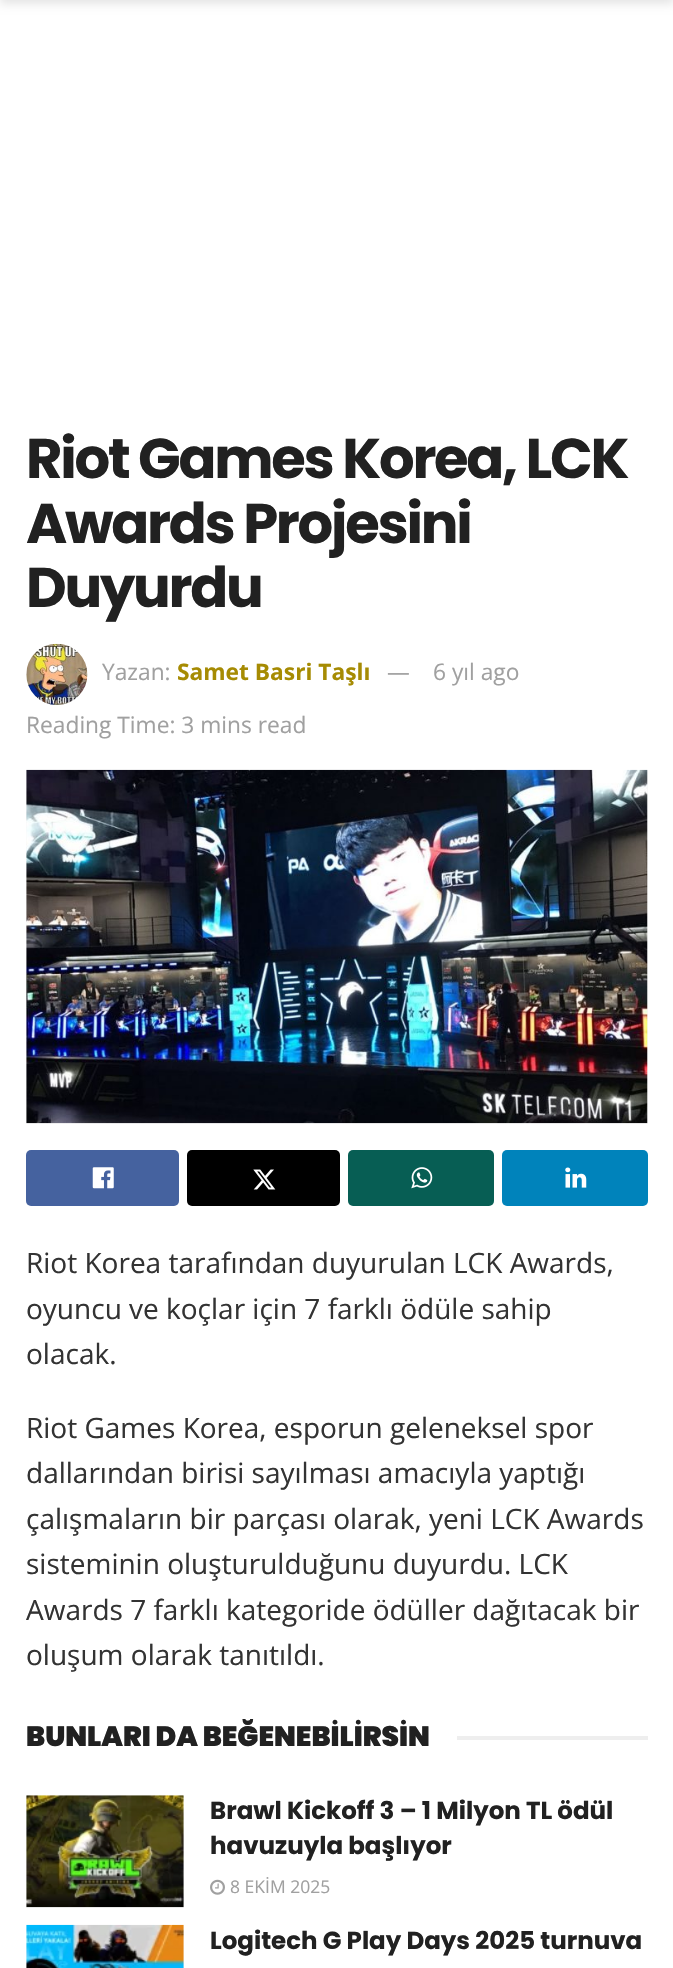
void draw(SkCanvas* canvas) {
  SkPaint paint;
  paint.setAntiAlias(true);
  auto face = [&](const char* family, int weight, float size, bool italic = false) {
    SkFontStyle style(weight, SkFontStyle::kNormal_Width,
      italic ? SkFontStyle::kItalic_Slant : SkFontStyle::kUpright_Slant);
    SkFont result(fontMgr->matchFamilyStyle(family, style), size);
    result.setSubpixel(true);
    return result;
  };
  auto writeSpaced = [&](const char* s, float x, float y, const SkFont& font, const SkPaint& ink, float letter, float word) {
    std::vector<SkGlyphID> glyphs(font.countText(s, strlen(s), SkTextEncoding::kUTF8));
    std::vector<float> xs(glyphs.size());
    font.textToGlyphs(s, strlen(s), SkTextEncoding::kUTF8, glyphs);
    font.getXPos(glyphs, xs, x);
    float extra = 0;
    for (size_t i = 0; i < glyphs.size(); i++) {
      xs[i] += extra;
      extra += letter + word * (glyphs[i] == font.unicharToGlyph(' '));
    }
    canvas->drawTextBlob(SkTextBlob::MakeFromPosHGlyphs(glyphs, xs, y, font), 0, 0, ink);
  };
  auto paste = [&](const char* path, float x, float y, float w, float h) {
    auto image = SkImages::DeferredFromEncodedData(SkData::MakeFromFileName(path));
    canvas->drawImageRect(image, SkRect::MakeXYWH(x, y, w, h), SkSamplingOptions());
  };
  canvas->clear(0xffffffff);
  paint.setColor(0x1a000000);
  paint.setMaskFilter(SkMaskFilter::MakeBlur(kNormal_SkBlurStyle, 5));
  canvas->drawRect(SkRect::MakeXYWH(0, -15, 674, 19), paint);
  paint.setMaskFilter(nullptr);
  paste("img/1.png", 26, 643, 62, 62);
  paint.setColor(0xfff7f7f7);
  canvas->drawRect(SkRect::MakeXYWH(26, 770, 622, 354), paint);
  paste("img/2.png", 26, 769, 622, 355);
  paint.setColor(0xff45629f);
  canvas->drawRoundRect(SkRect::MakeXYWH(26, 1150, 153, 56), 5, 5, paint);
  paste("img/3.png", 92, 1167, 22, 22);
  paint.setColor(0xff000000);
  canvas->drawRoundRect(SkRect::MakeXYWH(187, 1150, 153, 56), 5, 5, paint);
  paste("img/4.png", 253, 1169, 23, 21);
  paint.setColor(0xff075e54);
  canvas->drawRoundRect(SkRect::MakeXYWH(348, 1150, 146, 56), 5, 5, paint);
  paste("img/5.png", 411, 1167, 22, 22);
  paint.setColor(0xff0083bb);
  canvas->drawRoundRect(SkRect::MakeXYWH(502, 1150, 146, 56), 5, 5, paint);
  paste("img/6.png", 565, 1167, 22, 21);
  {
    const struct { float x, y, w, h; SkColor color; } items[] = {
      {457, 1736, 191, 4, 0xffeeeeee},
      {26, 1796, 158, 112, 0xfff7f7f7},
      {27, 1795, 156, 1, 0xfffafafa},
    };
    for (auto [x, y, w, h, color] : items) {
      paint.setColor(color);
      canvas->drawRect(SkRect::MakeXYWH(x, y, w, h), paint);
    }
  }
  paste("img/7.png", 26, 1795, 158, 113);
  paste("img/8.png", 210, 1879, 15, 16);
  paint.setColor(0xfff7f7f7);
  canvas->drawRect(SkRect::MakeXYWH(26, 1925, 158, 43), paint);
  paste("img/9.png", 26, 1924, 158, 44);
  auto f0 = face("Poppins", 700, 56);
  paint.setColor(0xff212121);
  {
    const struct { const char* s; float x, y; } items[] = {
      {"Riot Games Korea, LCK", 26, 478},
      {"Awards Projesini", 26, 543},
      {"Duyurdu", 26, 607},
    };
    for (auto [s, x, y] : items) {
      writeSpaced(s, x, y, f0, paint, -2.25f, 0);
    }
  }
  auto f1 = face("Open Sans", 400, 22.75f);
  paint.setColor(0xffa0a0a0);
  canvas->drawString("Yazan:", 102, 680, f1, paint);
  auto f2 = face("Open Sans", 700, 22.75f);
  paint.setColor(0xffa68b03);
  canvas->drawString("Samet Basri Taşlı", 177, 680, f2, paint);
  paint.setColor(0xffa0a0a0);
  {
    const struct { const char* s; float x, y; } items[] = {
      {"—", 387, 680},
      {"6 yıl ago", 433, 680},
      {"Reading Time: 3 mins read", 26, 733},
    };
    for (auto [s, x, y] : items) {
      canvas->drawString(s, x, y, f1, paint);
    }
  }
  auto f3 = face("Open Sans", 400, 28);
  paint.setColor(0xff333333);
  {
    const struct { const char* s; float x, y; } items[] = {
      {"Riot Korea tarafından duyurulan LCK Awards,", 26, 1273},
      {"oyuncu ve koçlar için 7 farklı ödüle sahip", 26, 1319},
      {"olacak.", 26, 1364},
      {"Riot Games Korea, esporun geleneksel spor", 26, 1438},
      {"dallarından birisi sayılması amacıyla yaptığı", 26, 1483},
      {"çalışmaların bir parçası olarak, yeni LCK Awards", 26, 1529},
      {"sisteminin oluşturulduğunu duyurdu. LCK", 26, 1574},
      {"Awards 7 farklı kategoride ödüller dağıtacak bir", 26, 1620},
      {"oluşum olarak tanıtıldı.", 26, 1665},
    };
    for (auto [s, x, y] : items) {
      canvas->drawString(s, x, y, f3, paint);
    }
  }
  auto f4 = face("Poppins", 900, 28);
  paint.setColor(0xff212121);
  canvas->drawString("BUNLARI DA BEĞENEBİLİRSİN", 26, 1746, f4, paint);
  auto f5 = face("Poppins", 700, 24.5f);
  canvas->drawString("Brawl Kickoff 3 – 1 Milyon TL ödül", 210, 1819, f5, paint);
  canvas->drawString("havuzuyla başlıyor", 210, 1854, f5, paint);
  auto f6 = face("Open Sans", 400, 17.5f);
  paint.setColor(0xffa0a0a0);
  canvas->drawString("8 EKİM 2025", 230, 1893, f6, paint);
  paint.setColor(0xff212121);
  canvas->drawString("Logitech G Play Days 2025 turnuva", 210, 1949, f5, paint);
}
